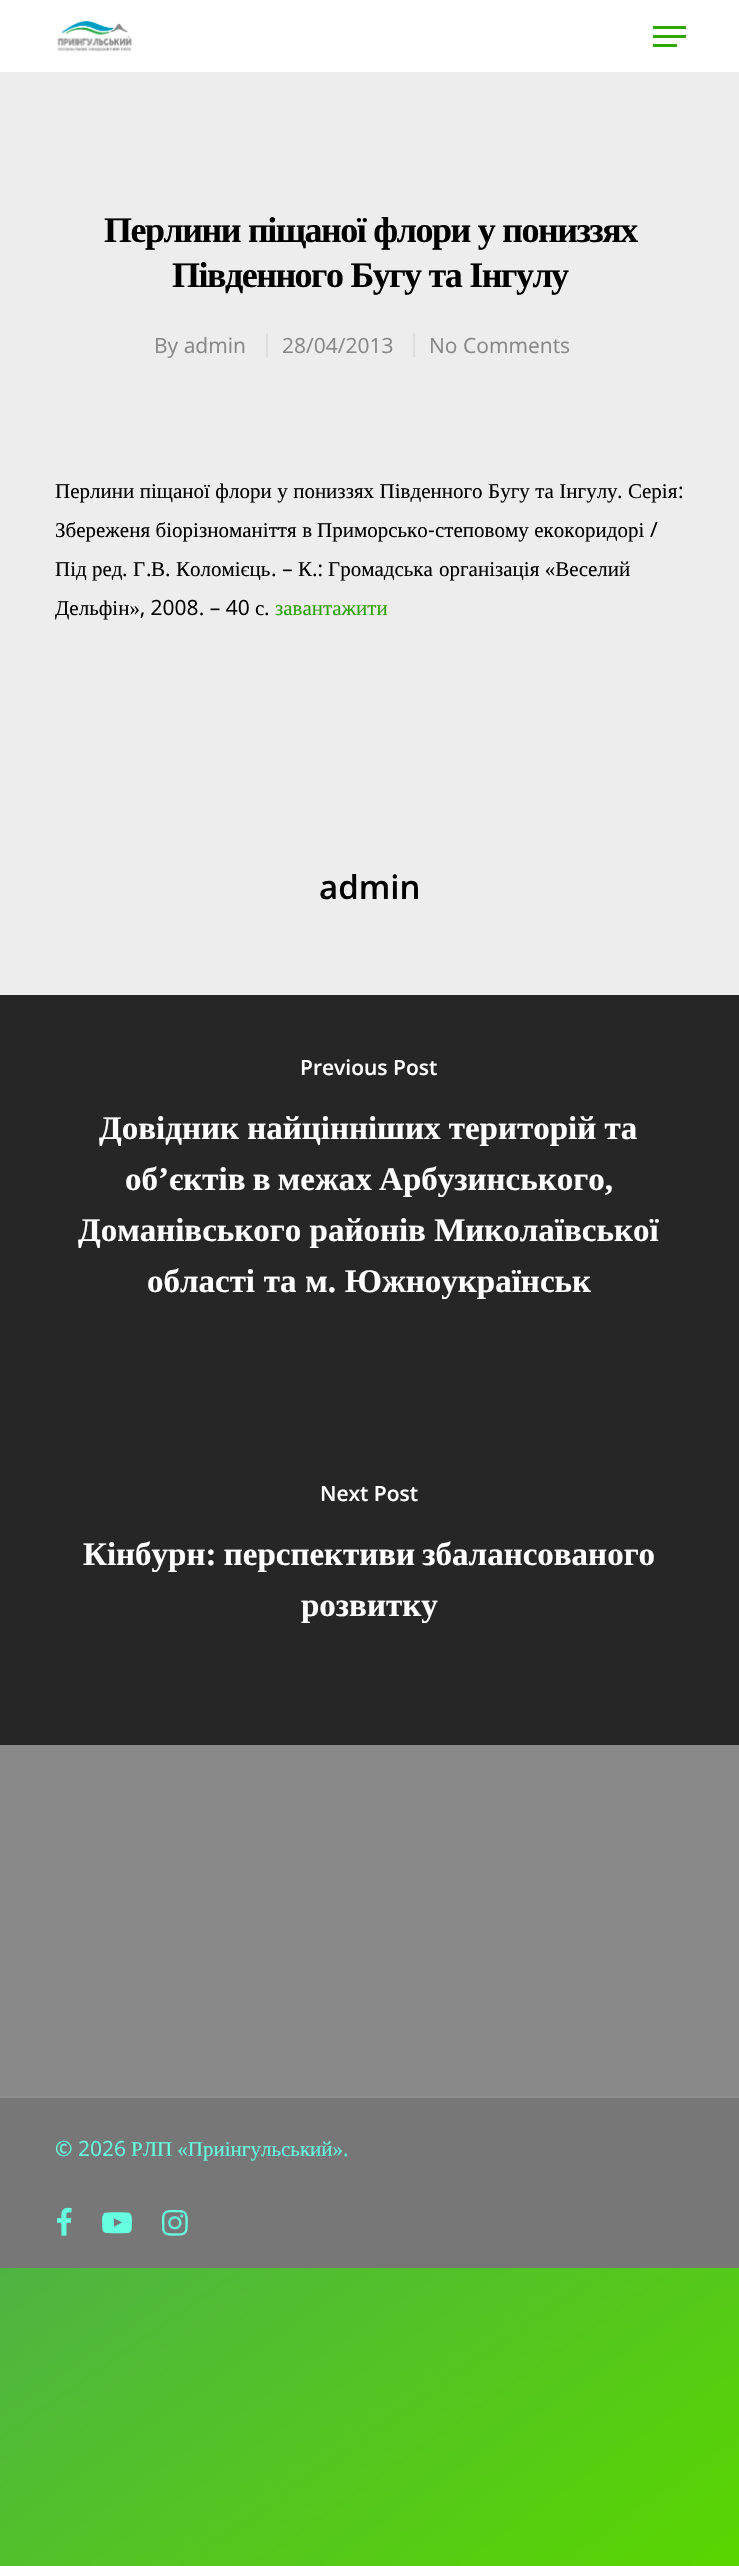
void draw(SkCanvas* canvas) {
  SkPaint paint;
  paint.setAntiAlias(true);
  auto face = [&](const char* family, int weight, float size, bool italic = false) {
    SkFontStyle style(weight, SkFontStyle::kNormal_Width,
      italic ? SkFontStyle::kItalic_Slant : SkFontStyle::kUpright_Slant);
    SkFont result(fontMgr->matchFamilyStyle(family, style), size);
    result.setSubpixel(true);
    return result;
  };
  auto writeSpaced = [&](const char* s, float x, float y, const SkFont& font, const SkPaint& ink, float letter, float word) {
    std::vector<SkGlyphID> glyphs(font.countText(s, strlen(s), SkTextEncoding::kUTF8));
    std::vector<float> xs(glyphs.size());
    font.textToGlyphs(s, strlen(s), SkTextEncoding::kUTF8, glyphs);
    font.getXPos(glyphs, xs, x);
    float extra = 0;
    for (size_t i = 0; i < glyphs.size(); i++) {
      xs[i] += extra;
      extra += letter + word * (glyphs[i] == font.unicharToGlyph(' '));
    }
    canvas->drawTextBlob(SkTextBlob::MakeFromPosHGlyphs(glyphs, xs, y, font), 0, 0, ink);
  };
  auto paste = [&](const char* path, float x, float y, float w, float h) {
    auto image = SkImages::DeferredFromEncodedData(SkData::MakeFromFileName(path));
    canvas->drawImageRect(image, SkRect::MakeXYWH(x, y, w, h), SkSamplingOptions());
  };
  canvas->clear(0xffffffff);
  paint.setColor(0xffededed);
  canvas->drawRect(SkRect::MakeXYWH(0, 72, 739, 923), paint);
  paste("img/1.png", 57, 21, 75, 31);
  {
    const struct { float x, y, w, h; SkColor color; } items[] = {
      {653, 26, 33, 3, 0xff2fa800},
      {653, 44, 24, 3, 0xff2fa800},
      {653, 35, 33, 3, 0xff2fa800},
      {266, 333, 2, 24, 0xffdddddd},
      {413, 333, 2, 24, 0xffdddddd},
      {0, 995, 739, 750, 0xff262626},
      {0, 1745, 739, 351, 0xff898989},
      {0, 2098, 739, 170, 0xff777777},
      {0, 2096, 739, 2, 0xff8f8f8f},
    };
    for (auto [x, y, w, h, color] : items) {
      paint.setColor(color);
      canvas->drawRect(SkRect::MakeXYWH(x, y, w, h), paint);
    }
  }
  paste("img/2.png", 57, 2207, 15, 29);
  paste("img/3.png", 102, 2212, 30, 22);
  paste("img/4.png", 162, 2209, 26, 27);
  {
    const SkColor colors[] = {0xff3452ff, 0xff59d600};
    const float stops[] = {0, 1};
    const SkPoint ends[] = {{-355, 248}, {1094, 2318}};
    paint.setShader(SkGradientShader::MakeLinear(ends, colors, stops, 2, SkTileMode::kClamp));
    paint.setAlpha(255);
  }
  canvas->drawRect(SkRect::MakeXYWH(0, 2268, 739, 298), paint);
  auto f0 = face("Liberation Serif", 700, 36);
  paint.setShader(nullptr);
  paint.setColor(0xff000000);
  writeSpaced("Перлини піщаної флори у пониззях", 104, 242, f0, paint, -1.5f, 0.5f);
  writeSpaced("Південного Бугу та Інгулу", 172, 287, f0, paint, -1.5f, 0.5f);
  auto f1 = face("Open Sans", 400, 21);
  paint.setColor(0xff888888);
  {
    const struct { const char* s; float x, y; } items[] = {
      {"By admin", 154, 353},
      {"28/04/2013", 282, 353},
      {"No Comments", 429, 353},
    };
    for (auto [s, x, y] : items) {
      canvas->drawString(s, x, y, f1, paint);
    }
  }
  auto f2 = face("Liberation Serif", 400, 21);
  paint.setColor(0xff000000);
  writeSpaced("Перлини піщаної флори у пониззях Південного Бугу та Інгулу", 55, 498, f2, paint, 0, 0.25f);
  canvas->drawString(".", 617, 498, f1, paint);
  canvas->drawString("Серія", 628, 498, f2, paint);
  canvas->drawString(":", 678, 498, f1, paint);
  writeSpaced("Збереженя біорізноманіття в", 55, 537, f2, paint, 0, 0.25f);
  canvas->drawString("Приморсько", 317, 537, f2, paint);
  canvas->drawString("-", 428, 537, f1, paint);
  writeSpaced("степовому екокоридорі", 435, 537, f2, paint, 0, 0.25f);
  canvas->drawString("/", 650, 537, f1, paint);
  canvas->drawString("Під ред", 55, 576, f2, paint);
  canvas->drawString(".", 122, 576, f1, paint);
  canvas->drawString("Г", 133, 576, f2, paint);
  canvas->drawString(".", 146, 576, f1, paint);
  canvas->drawString("В", 151, 576, f2, paint);
  canvas->drawString(".", 165, 576, f1, paint);
  canvas->drawString("Коломієць", 176, 576, f2, paint);
  canvas->drawString(". –", 271, 576, f1, paint);
  canvas->drawString("К", 298, 576, f2, paint);
  canvas->drawString(".:", 312, 576, f1, paint);
  canvas->drawString("Громадська", 328, 576, f2, paint);
  writeSpaced("організація «Веселий", 439, 576, f2, paint, 0, 0.25f);
  canvas->drawString("Дельфін»", 55, 615, f2, paint);
  canvas->drawString(", 2008. – 40", 140, 615, f1, paint);
  canvas->drawString("с", 255, 615, f2, paint);
  canvas->drawString(".", 264, 615, f1, paint);
  paint.setColor(0xff30a303);
  canvas->drawString("завантажити", 275, 615, f2, paint);
  auto f3 = face("Open Sans", 600, 33);
  paint.setColor(0xff000000);
  canvas->drawString("admin", 319, 899, f3, paint);
  auto f4 = face("Open Sans", 600, 21);
  paint.setColor(0xffffffff);
  canvas->drawString("Previous Post", 300, 1075, f4, paint);
  auto f5 = face("Liberation Serif", 700, 33);
  canvas->drawString("Довідник найцінніших територій та", 99, 1139, f5, paint);
  writeSpaced("об’єктів в межах Арбузинського,", 125, 1190, f5, paint, 0, -1);
  canvas->drawString("Доманівського районів Миколаївської", 78, 1241, f5, paint);
  writeSpaced("області та м. Южноукраїнськ", 147, 1292, f5, paint, 0, 0.5f);
  canvas->drawString("Next Post", 320, 1501, f4, paint);
  writeSpaced("Кінбурн: перспективи збалансованого", 83, 1565, f5, paint, 0, -1);
  canvas->drawString("розвитку", 301, 1616, f5, paint);
  paint.setColor(0xff66ffe0);
  canvas->drawString("© 2026", 55, 2156, f1, paint);
  canvas->drawString("РЛП «Приінгульський»", 131, 2156, f2, paint);
  canvas->drawString(".", 343, 2156, f1, paint);
}
